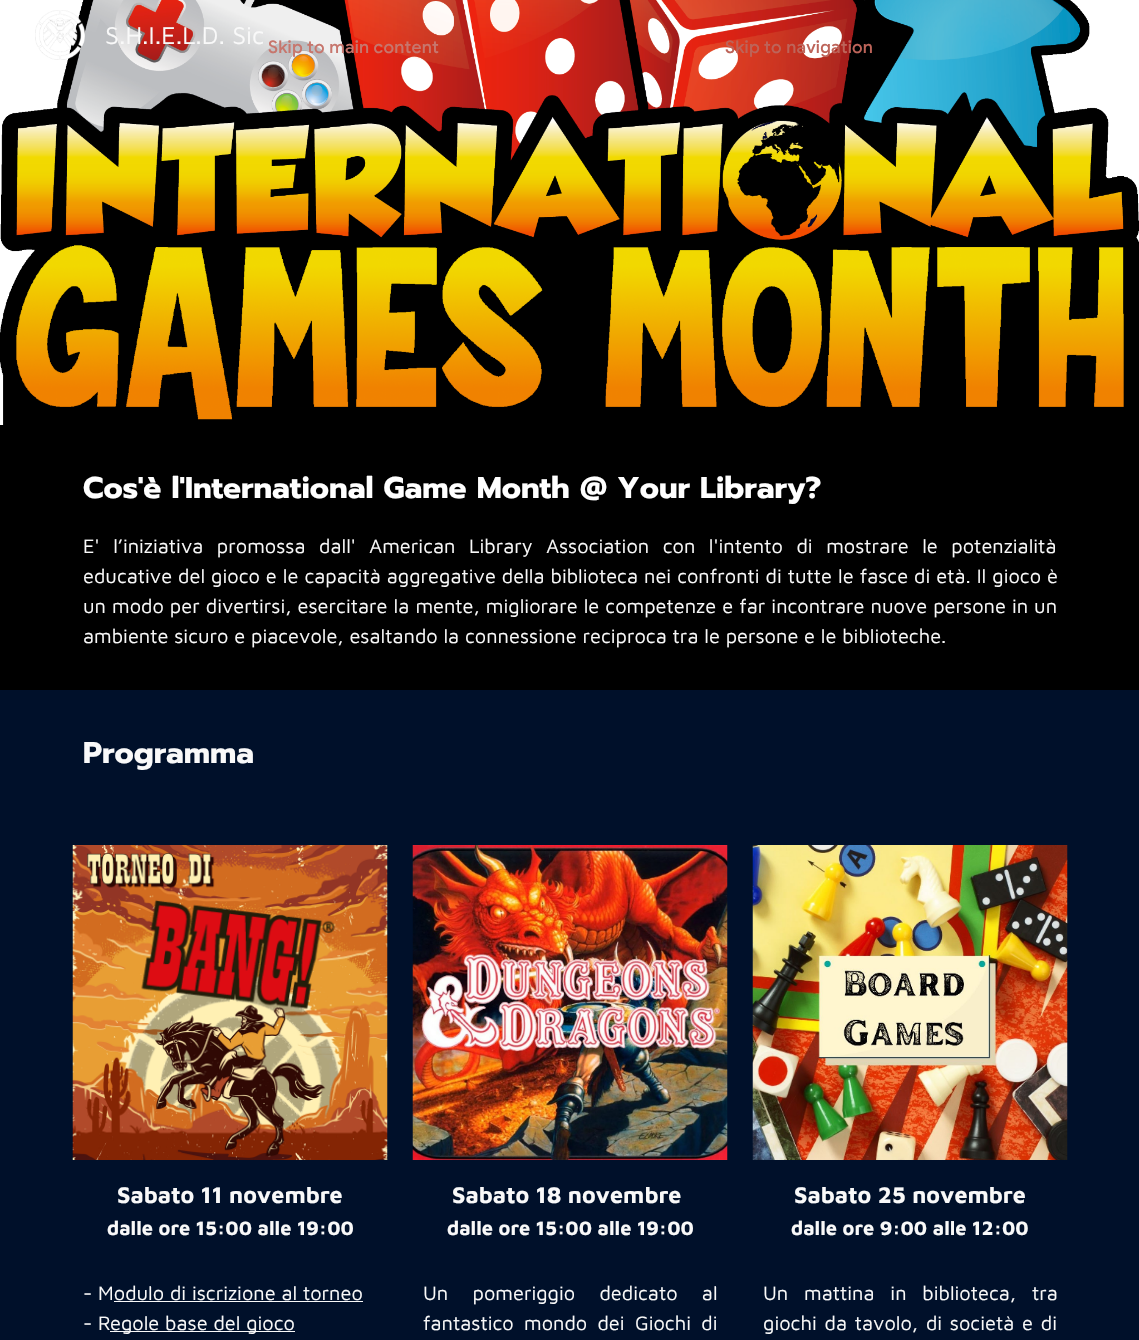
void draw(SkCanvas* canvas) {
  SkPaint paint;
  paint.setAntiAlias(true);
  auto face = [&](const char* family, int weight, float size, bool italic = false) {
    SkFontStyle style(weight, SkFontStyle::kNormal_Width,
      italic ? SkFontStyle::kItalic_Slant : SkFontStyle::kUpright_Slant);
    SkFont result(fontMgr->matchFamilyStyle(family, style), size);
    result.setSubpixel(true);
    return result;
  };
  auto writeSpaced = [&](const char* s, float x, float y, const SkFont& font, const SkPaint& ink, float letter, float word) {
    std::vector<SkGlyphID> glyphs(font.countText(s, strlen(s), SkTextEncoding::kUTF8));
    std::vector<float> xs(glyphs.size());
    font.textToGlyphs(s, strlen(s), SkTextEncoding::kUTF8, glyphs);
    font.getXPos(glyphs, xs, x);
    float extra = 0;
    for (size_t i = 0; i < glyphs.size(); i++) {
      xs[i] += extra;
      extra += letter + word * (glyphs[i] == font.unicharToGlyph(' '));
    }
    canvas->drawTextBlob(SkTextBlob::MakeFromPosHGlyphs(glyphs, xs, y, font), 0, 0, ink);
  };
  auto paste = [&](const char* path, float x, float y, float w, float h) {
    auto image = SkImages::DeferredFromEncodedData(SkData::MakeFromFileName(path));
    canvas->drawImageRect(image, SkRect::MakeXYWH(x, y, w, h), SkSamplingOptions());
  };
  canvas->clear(0xff00102a);
  paint.setColor(0xffffffff);
  canvas->drawRect(SkRect::MakeXYWH(0, 0, 1139, 425), paint);
  paste("img/2.png", 0, 0, 1139, 425);
  paste("img/1.png", 35, 10, 50, 50);
  paint.setColor(0xff000000);
  canvas->drawRect(SkRect::MakeXYWH(0, 425, 1139, 265), paint);
  paste("img/3.png", 72, 845, 316, 315);
  paint.setColor(0xfff9f9f9);
  canvas->drawRect(SkRect::MakeXYWH(114, 1301, 249, 1), paint);
  canvas->drawRect(SkRect::MakeXYWH(110, 1331, 185, 1), paint);
  paste("img/4.png", 412, 845, 316, 315);
  paste("img/5.png", 752, 845, 316, 315);
  auto f0 = face("Maven Pro", 400, 25);
  canvas->drawString("S.H.I.E.L.D. Sic", 105, 44, f0, paint);
  auto f1 = face("Prompt", 700, 30);
  paint.setColor(0xffffffff);
  canvas->drawString("Cos'è l'International Game Month @ Your Library?", 83, 498, f1, paint);
  auto f2 = face("Maven Pro", 400, 20);
  paint.setColor(0xfff9f9f9);
  writeSpaced("E' l’iniziativa promossa dall' American Library Association con l'intento di mostrare le potenzialità", 83, 553, f2, paint, 0, 7.75f);
  writeSpaced("educative del gioco e le capacità aggregative della biblioteca nei confronti di tutte le fasce di età. Il gioco è", 83, 583, f2, paint, 0, 0.2f);
  writeSpaced("un modo per divertirsi, esercitare la mente, migliorare le competenze e far incontrare nuove persone in un", 83, 613, f2, paint, 0, 0.25f);
  canvas->drawString("ambiente sicuro e piacevole, esaltando la connessione reciproca tra le persone e le biblioteche.", 83, 643, f2, paint);
  canvas->drawString("Programma", 83, 763, f1, paint);
  auto f3 = face("Maven Pro", 700, 23.25f);
  canvas->drawString("Sabato 11 novembre", 117, 1203, f3, paint);
  auto f4 = face("Maven Pro", 700, 20);
  canvas->drawString("dalle ore 15:00 alle 19:00", 107, 1235, f4, paint);
  {
    const struct { const char* s; float x, y; } items[] = {
      {"- Modulo di iscrizione al torneo", 83, 1300},
      {"- R", 83, 1330},
      {"egole base del gioco", 110, 1330},
    };
    for (auto [s, x, y] : items) {
      canvas->drawString(s, x, y, f2, paint);
    }
  }
  canvas->drawString("Sabato 18 novembre", 452, 1203, f3, paint);
  canvas->drawString("dalle ore 15:00 alle 19:00", 447, 1235, f4, paint);
  writeSpaced("Un pomeriggio dedicato al", 423, 1300, f2, paint, 0, 18.5f);
  writeSpaced("fantastico mondo dei Giochi di", 423, 1330, f2, paint, 0, 4.5f);
  canvas->drawString("Sabato 25 novembre", 794, 1203, f3, paint);
  canvas->drawString("dalle ore 9:00 alle 12:00", 791, 1235, f4, paint);
  writeSpaced("Un mattina in biblioteca, tra", 763, 1300, f2, paint, 0, 10);
  writeSpaced("giochi da tavolo, di società e di", 763, 1330, f2, paint, 0, 2);
  auto f5 = face("Google Sans", 500, 17.5f);
  paint.setColor(0xffc7766d);
  writeSpaced("Skip to main content", 268, 53, f5, paint, 0.2f, 0);
  paint.setColor(0xffbd6459);
  writeSpaced("Skip to navigation", 725, 53, f5, paint, 0.2f, 0);
}
